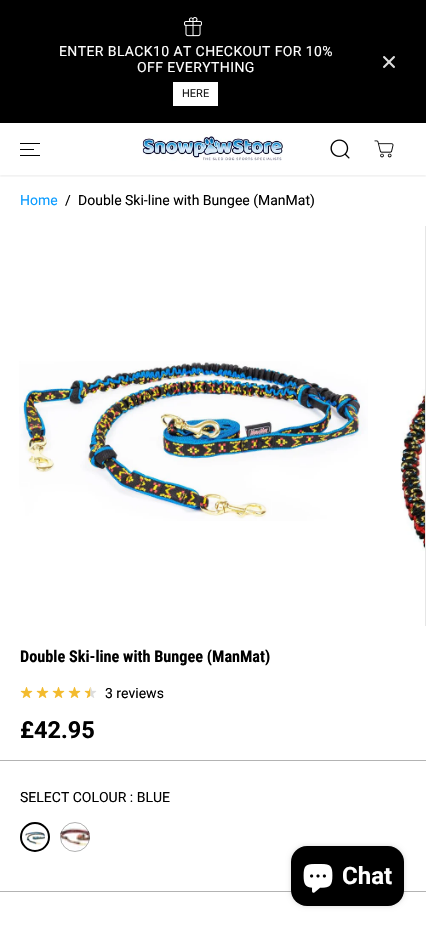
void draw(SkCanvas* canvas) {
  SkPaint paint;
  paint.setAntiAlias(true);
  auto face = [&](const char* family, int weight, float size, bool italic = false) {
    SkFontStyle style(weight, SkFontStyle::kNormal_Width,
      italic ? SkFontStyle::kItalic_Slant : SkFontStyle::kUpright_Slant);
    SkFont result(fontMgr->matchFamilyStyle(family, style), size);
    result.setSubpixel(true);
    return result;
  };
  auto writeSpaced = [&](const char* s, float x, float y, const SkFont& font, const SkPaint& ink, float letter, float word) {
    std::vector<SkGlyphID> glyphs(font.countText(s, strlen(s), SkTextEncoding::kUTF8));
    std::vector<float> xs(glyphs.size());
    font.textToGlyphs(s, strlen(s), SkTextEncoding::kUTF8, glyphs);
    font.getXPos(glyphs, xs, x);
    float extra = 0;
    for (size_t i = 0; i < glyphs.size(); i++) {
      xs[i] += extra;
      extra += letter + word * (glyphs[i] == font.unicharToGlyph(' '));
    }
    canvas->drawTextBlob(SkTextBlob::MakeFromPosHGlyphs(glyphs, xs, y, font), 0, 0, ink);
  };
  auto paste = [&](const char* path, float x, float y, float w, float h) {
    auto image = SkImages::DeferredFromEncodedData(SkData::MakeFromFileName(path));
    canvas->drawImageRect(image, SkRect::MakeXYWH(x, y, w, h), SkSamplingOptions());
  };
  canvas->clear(0xffffffff);
  paint.setColor(0xff000000);
  canvas->drawRect(SkRect::MakeXYWH(0, 0, 426, 123), paint);
  paste("img/1.png", 184, 17, 18, 20);
  paint.setColor(0xffffffff);
  canvas->drawRect(SkRect::MakeXYWH(173, 82, 45, 24), paint);
  paste("img/2.png", 383, 56, 12, 12);
  canvas->save();
  canvas->clipRect(SkRect::MakeXYWH(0, 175, 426, 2));
  paint.setColor(0x0d000000);
  paint.setMaskFilter(SkMaskFilter::MakeBlur(kNormal_SkBlurStyle, 1));
  canvas->drawRect(SkRect::MakeXYWH(0, 125, 426, 52), paint);
  paint.setMaskFilter(nullptr);
  canvas->restore();
  {
    const struct { float x, y, w, h; SkColor color; } items[] = {
      {20, 149, 14, 1, 0xff000000},
      {20, 143, 20, 1, 0xff000000},
      {20, 155, 20, 1, 0xff000000},
    };
    for (auto [x, y, w, h, color] : items) {
      paint.setColor(color);
      canvas->drawRect(SkRect::MakeXYWH(x, y, w, h), paint);
    }
  }
  paste("img/3.png", 142, 134, 141, 27);
  paste("img/4.png", 330, 139, 20, 20);
  paste("img/5.png", 374, 140, 20, 18);
  paint.setColor(0xffe6e6e6);
  canvas->drawRect(SkRect::MakeXYWH(425, 226, 1, 400), paint);
  paste("img/6.png", 19, 361, 349, 160);
  paste("img/7.png", 400, 389, 25, 162);
  paste("img/8.png", 20, 687, 13, 11);
  paste("img/8.png", 36, 687, 13, 11);
  paste("img/8.png", 52, 687, 13, 11);
  paste("img/8.png", 68, 687, 13, 11);
  paste("img/9.png", 84, 687, 13, 11);
  paint.setColor(0xffb3b3b3);
  canvas->drawRect(SkRect::MakeXYWH(0, 760, 426, 1), paint);
  paste("img/10.png", 25, 827, 20, 20);
  paint.setStroke(true);
  paint.setStrokeWidth(2);
  paint.setColor(0xff000000);
  canvas->drawCircle(35, 837, 14, paint);
  paste("img/11.png", 60, 826, 30, 25);
  paint.setStrokeWidth(1);
  paint.setColor(0x4d000000);
  canvas->drawCircle(75, 837, 14.5f, paint);
  paint.setStroke(false);
  paint.setColor(0xffb3b3b3);
  canvas->drawRect(SkRect::MakeXYWH(0, 891, 426, 1), paint);
  paint.setColor(0x26000000);
  paint.setMaskFilter(SkMaskFilter::MakeBlur(kNormal_SkBlurStyle, 2.5f));
  canvas->drawRoundRect(SkRect::MakeXYWH(291, 846, 113, 60), 16, 16, paint);
  paint.setMaskFilter(nullptr);
  paint.setColor(0xff000000);
  canvas->drawRoundRect(SkRect::MakeXYWH(291, 846, 113, 60), 16, 16, paint);
  paste("img/12.png", 303, 864, 30, 29);
  auto f0 = face("Roboto", 400, 14);
  paint.setColor(0xffffffff);
  writeSpaced("ENTER BLACK10 AT CHECKOUT FOR 10%", 59, 56, f0, paint, 0.4f, 0);
  writeSpaced("OFF EVERYTHING", 137, 72, f0, paint, 0.4f, 0);
  auto f1 = face("Roboto", 400, 11);
  paint.setColor(0xff181818);
  canvas->drawString("HERE", 182, 97, f1, paint);
  paint.setColor(0xff0b9cff);
  canvas->drawString("Home", 20, 205, f0, paint);
  paint.setColor(0xff000000);
  canvas->drawString("/", 65, 205, f0, paint);
  canvas->drawString("Double Ski-line with Bungee (ManMat)", 78, 205, f0, paint);
  auto f2 = face("Roboto Condensed", 700, 16.25f);
  canvas->drawString("Double Ski-line with Bungee (ManMat)", 20, 662, f2, paint);
  canvas->drawString("3 reviews", 105, 698, f0, paint);
  auto f3 = face("Roboto", 700, 23.5f);
  canvas->drawString("£42.95", 20, 738, f3, paint);
  canvas->drawString("SELECT COLOUR : BLUE", 20, 802, f0, paint);
  auto f4 = face("Roboto", 700, 24);
  paint.setColor(0xffffffff);
  canvas->drawString("Chat", 342, 884, f4, paint);
}
